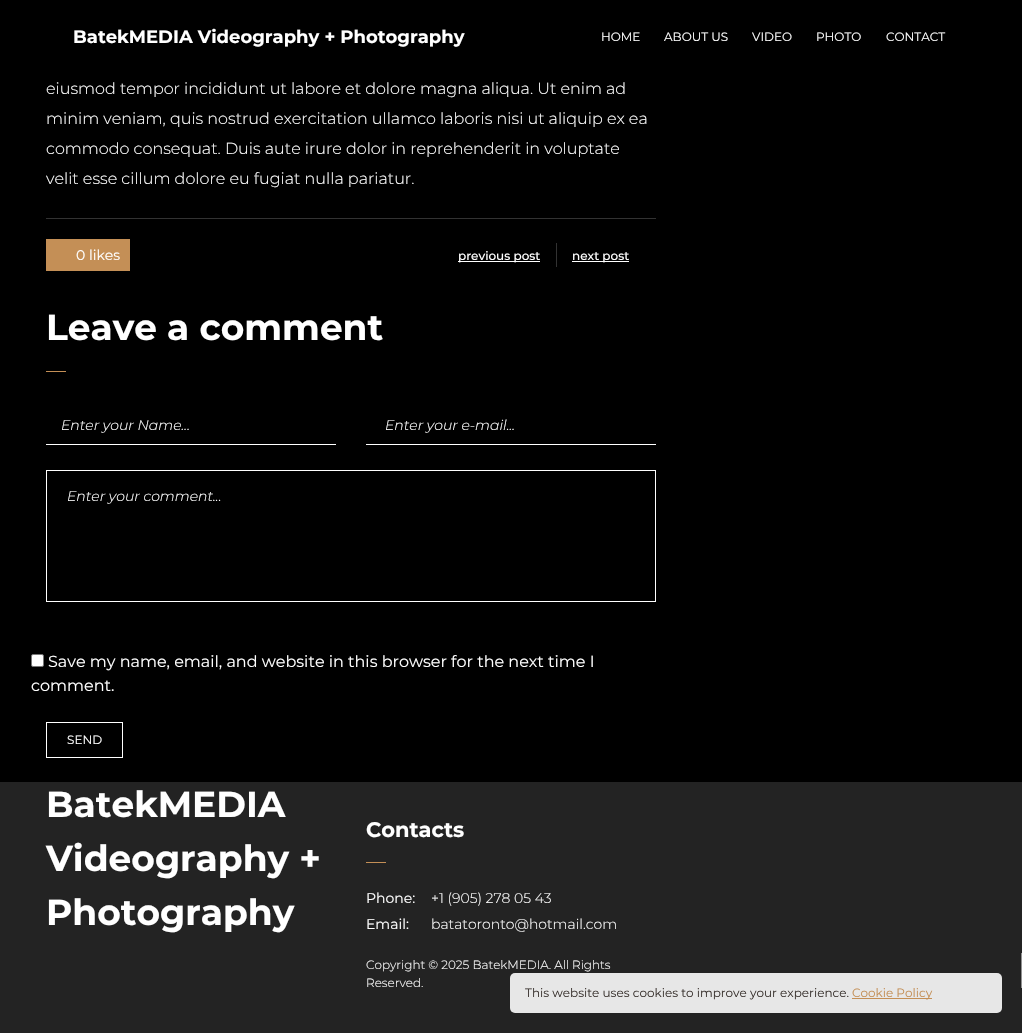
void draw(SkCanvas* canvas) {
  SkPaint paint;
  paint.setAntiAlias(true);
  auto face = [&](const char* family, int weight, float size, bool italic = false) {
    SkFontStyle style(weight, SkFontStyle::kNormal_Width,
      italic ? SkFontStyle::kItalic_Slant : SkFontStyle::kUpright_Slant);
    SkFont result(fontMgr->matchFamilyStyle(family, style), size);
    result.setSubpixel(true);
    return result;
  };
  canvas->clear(0xff000000);
  {
    const struct { float x, y, w, h; SkColor color; } items[] = {
      {46, 218, 610, 1, 0xff323232},
      {46, 239, 84, 32, 0xffc48f56},
      {458, 261, 82, 1, 0xffffffff},
      {556, 243, 1, 24, 0xff323232},
      {572, 261, 57, 1, 0xffffffff},
      {46, 371, 20, 1, 0xffc48f56},
      {46, 444, 290, 1, 0xffffffff},
      {366, 444, 290, 1, 0xffffffff},
    };
    for (auto [x, y, w, h, color] : items) {
      paint.setColor(color);
      canvas->drawRect(SkRect::MakeXYWH(x, y, w, h), paint);
    }
  }
  paint.setStroke(true);
  paint.setStrokeWidth(1);
  canvas->drawRect(SkRect::MakeXYWH(46.5f, 470.5f, 609, 131), paint);
  paint.setStroke(false);
  canvas->drawRoundRect(SkRect::MakeXYWH(31.5f, 654.5f, 12, 12), 1.5f, 1.5f, paint);
  paint.setStroke(true);
  paint.setColor(0xff767676);
  canvas->drawRoundRect(SkRect::MakeXYWH(31.5f, 654.5f, 12, 12), 1.5f, 1.5f, paint);
  paint.setColor(0xffffffff);
  canvas->drawRect(SkRect::MakeXYWH(46.5f, 722.5f, 76, 35), paint);
  paint.setStroke(false);
  paint.setColor(0xff232323);
  canvas->drawRect(SkRect::MakeXYWH(0, 782, 1022, 251), paint);
  paint.setColor(0xffc48f56);
  canvas->drawRect(SkRect::MakeXYWH(366, 862, 20, 1), paint);
  paint.setStroke(true);
  paint.setColor(0xff919191);
  canvas->drawRect(SkRect::MakeXYWH(1021.5f, 953.5f, 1, 34), paint);
  paint.setStroke(false);
  paint.setColor(0xffe7e7e7);
  canvas->drawRoundRect(SkRect::MakeXYWH(510, 973, 492, 40), 5, 5, paint);
  paint.setColor(0xffc48f56);
  canvas->drawRect(SkRect::MakeXYWH(852, 998, 80, 1), paint);
  auto f0 = face("Montserrat", 700, 18);
  paint.setColor(0xffffffff);
  canvas->drawString("BatekMEDIA Videography + Photography", 73, 43, f0, paint);
  auto f1 = face("Montserrat", 400, 12);
  {
    const struct { const char* s; float x, y; } items[] = {
      {"HOME", 601, 41},
      {"ABOUT US", 664, 41},
      {"VIDEO", 752, 41},
      {"PHOTO", 816, 41},
      {"CONTACT", 886, 41},
    };
    for (auto [s, x, y] : items) {
      canvas->drawString(s, x, y, f1, paint);
    }
  }
  auto f2 = face("Montserrat", 300, 16);
  {
    const struct { const char* s; float x, y; } items[] = {
      {"eiusmod tempor incididunt ut labore et dolore magna aliqua. Ut enim ad", 46, 94},
      {"minim veniam, quis nostrud exercitation ullamco laboris nisi ut aliquip ex ea", 46, 124},
      {"commodo consequat. Duis aute irure dolor in reprehenderit in voluptate", 46, 154},
      {"velit esse cillum dolore eu fugiat nulla pariatur.", 46, 184},
    };
    for (auto [s, x, y] : items) {
      canvas->drawString(s, x, y, f2, paint);
    }
  }
  auto f3 = face("Montserrat", 400, 14);
  canvas->drawString("0 likes", 76, 260, f3, paint);
  auto f4 = face("Montserrat", 500, 12);
  canvas->drawString("previous post", 458, 260, f4, paint);
  canvas->drawString("next post", 572, 260, f4, paint);
  auto f5 = face("Montserrat", 700, 36);
  canvas->drawString("Leave a comment", 46, 340, f5, paint);
  auto f6 = face("Montserrat", 300, 14, true);
  {
    const struct { const char* s; float x, y; } items[] = {
      {"Enter your Name...", 61, 430},
      {"Enter your e-mail...", 385, 430},
      {"Enter your comment...", 67, 501},
    };
    for (auto [s, x, y] : items) {
      canvas->drawString(s, x, y, f6, paint);
    }
  }
  auto f7 = face("Montserrat", 400, 16);
  canvas->drawString("Save my name, email, and website in this browser for the next time I", 48, 667, f7, paint);
  canvas->drawString("comment.", 31, 691, f7, paint);
  canvas->drawString("SEND", 67, 744, f1, paint);
  {
    const struct { const char* s; float x, y; } items[] = {
      {"BatekMEDIA", 46, 817},
      {"Videography +", 46, 871},
      {"Photography", 46, 925},
    };
    for (auto [s, x, y] : items) {
      canvas->drawString(s, x, y, f5, paint);
    }
  }
  auto f8 = face("Montserrat", 700, 21);
  canvas->drawString("Contacts", 366, 837, f8, paint);
  canvas->drawString("Phone:", 366, 903, f3, paint);
  auto f9 = face("Montserrat", 300, 14);
  canvas->drawString("+1 (905) 278 05 43", 431, 903, f9, paint);
  canvas->drawString("Email:", 366, 929, f3, paint);
  canvas->drawString("batatoronto@hotmail.com", 431, 929, f9, paint);
  auto f10 = face("Montserrat", 300, 12);
  canvas->drawString("Copyright © 2025 BatekMEDIA. All Rights", 366, 969, f10, paint);
  canvas->drawString("Reserved.", 366, 987, f10, paint);
  paint.setColor(0xff3c3531);
  canvas->drawString("This website uses cookies to improve your experience.", 525, 997, f1, paint);
  paint.setColor(0xffc48f56);
  canvas->drawString("Cookie Policy", 852, 997, f1, paint);
}
